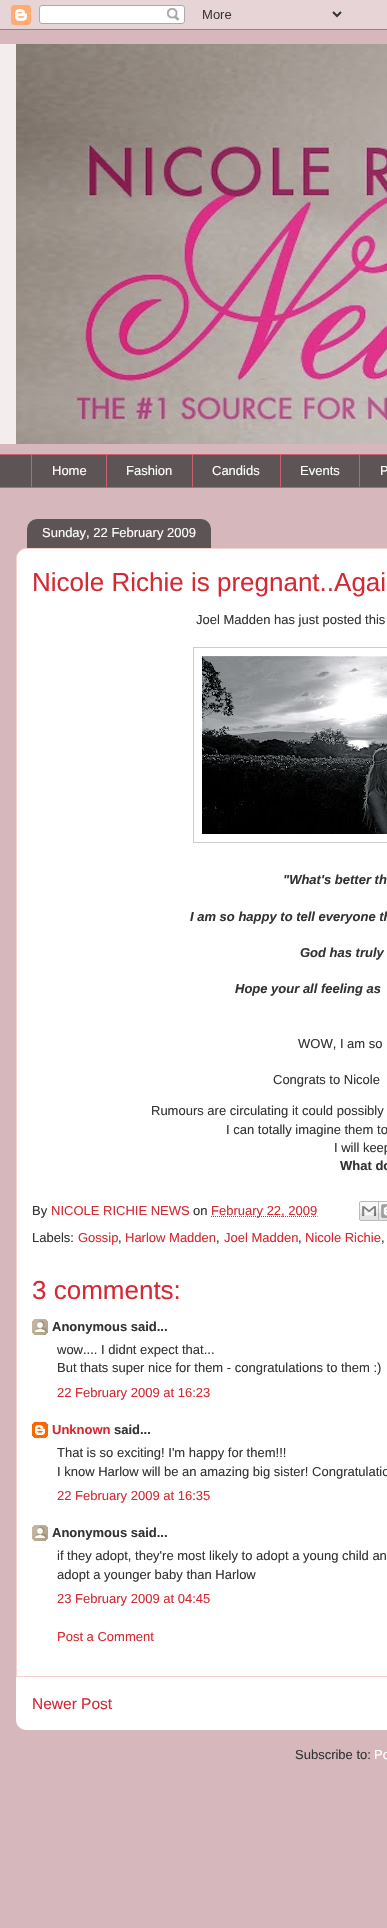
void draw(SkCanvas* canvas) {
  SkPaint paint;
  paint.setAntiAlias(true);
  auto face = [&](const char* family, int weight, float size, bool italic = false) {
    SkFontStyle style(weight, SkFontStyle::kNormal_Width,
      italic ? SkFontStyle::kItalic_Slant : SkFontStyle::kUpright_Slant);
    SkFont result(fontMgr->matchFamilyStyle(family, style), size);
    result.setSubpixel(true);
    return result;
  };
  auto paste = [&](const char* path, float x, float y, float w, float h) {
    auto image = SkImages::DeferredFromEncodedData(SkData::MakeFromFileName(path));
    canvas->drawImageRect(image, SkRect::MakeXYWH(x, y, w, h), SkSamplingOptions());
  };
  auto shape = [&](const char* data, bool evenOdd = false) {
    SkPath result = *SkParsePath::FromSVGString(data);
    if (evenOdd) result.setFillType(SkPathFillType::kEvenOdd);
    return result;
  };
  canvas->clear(0xffd5b7bc);
  paste("img/1.png", 0, 0, 387, 30);
  paint.setColor(0xfff4edee);
  canvas->drawRect(SkRect::MakeXYWH(0, 44, 16, 400), paint);
  paste("img/2.png", 16, 44, 371, 400);
  {
    const struct { float x, y, w, h; SkColor color; } items[] = {
      {0, 455, 387, 32, 0xff5c5455},
      {0, 454, 387, 1, 0xffce5f70},
      {31, 454, 1, 34, 0xffce5f70},
      {106, 454, 1, 34, 0xffce5f70},
      {192, 454, 1, 34, 0xffce5f70},
      {280, 454, 1, 34, 0xffce5f70},
      {359, 454, 1, 34, 0xffce5f70},
      {0, 487, 387, 1, 0xffce5f70},
    };
    for (auto [x, y, w, h, color] : items) {
      paint.setColor(color);
      canvas->drawRect(SkRect::MakeXYWH(x, y, w, h), paint);
    }
  }
  paint.setColor(0xffffffff);
  canvas->drawPath(shape("M26 548.5H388C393 548.5 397.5 553 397.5 558V1676.5H16.5V558C16.5 553 21 548.5 26 548.5Z"), paint);
  paint.setStroke(true);
  paint.setStrokeWidth(1);
  paint.setColor(0xfff4d3cc);
  canvas->drawPath(shape("M26 548.5H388C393 548.5 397.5 553 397.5 558V1676.5H16.5V558C16.5 553 21 548.5 26 548.5Z"), paint);
  paste("img/3.png", 27, 519, 184, 29);
  paint.setColor(0xffcccccc);
  canvas->drawRect(SkRect::MakeXYWH(193.5f, 647.5f, 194, 195), paint);
  paste("img/4.png", 202, 656, 185, 178);
  paint.setColor(0xffd52a33);
  paint.setPathEffect(SkDashPathEffect::Make({{1, 1}}, 0));
  canvas->drawPath(shape("M211 1216.5H317.5"), paint);
  paint.setPathEffect(nullptr);
  paste("img/5.png", 359, 1201, 20, 20);
  paste("img/6.png", 379, 1201, 8, 20);
  paste("img/7.png", 32, 1319, 16, 16);
  paste("img/8.png", 32, 1422, 16, 16);
  paste("img/7.png", 32, 1525, 16, 16);
  paint.setStroke(false);
  paint.setColor(0xffffffff);
  canvas->drawPath(shape("M16 1677H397V1720C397 1725.5 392.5 1730 387 1730H26C20.5 1730 16 1725.5 16 1720Z"), paint);
  auto f0 = face("Liberation Sans", 400, 13);
  {
    const struct { const char* s; float x, y; } items[] = {
      {"Home", 52, 475},
      {"Fashion", 126, 475},
      {"Candids", 212, 475},
      {"Events", 300, 475},
      {"P", 380, 475},
      {"Sunday, 22 February 2009", 42, 537},
    };
    for (auto [s, x, y] : items) {
      canvas->drawString(s, x, y, f0, paint);
    }
  }
  auto f1 = face("Liberation Sans", 400, 26);
  paint.setColor(0xffd52a33);
  canvas->drawString("Nicole Richie is pregnant..Agai", 32, 591, f1, paint);
  paint.setColor(0xff333333);
  canvas->drawString("Joel Madden has just posted this", 196, 624, f0, paint);
  auto f2 = face("Liberation Sans", 700, 13, true);
  {
    const struct { const char* s; float x, y; } items[] = {
      {"\"What's better th", 283, 884},
      {"I am so happy to tell everyone th", 190, 921},
      {"God has truly", 300, 957},
      {"Hope your all feeling as", 235, 993},
    };
    for (auto [s, x, y] : items) {
      canvas->drawString(s, x, y, f2, paint);
    }
  }
  {
    const struct { const char* s; float x, y; } items[] = {
      {"WOW, I am so", 298, 1048},
      {"Congrats to Nicole", 273, 1084},
      {"Rumours are circulating it could possibly", 151, 1115},
      {"I can totally imagine them to", 226, 1134},
      {"I will keep", 334, 1152},
    };
    for (auto [s, x, y] : items) {
      canvas->drawString(s, x, y, f0, paint);
    }
  }
  auto f3 = face("Liberation Sans", 700, 13);
  canvas->drawString("What do", 340, 1170, f3, paint);
  canvas->drawString("By", 32, 1215, f0, paint);
  paint.setColor(0xffd52a33);
  canvas->drawString("NICOLE RICHIE NEWS", 51, 1215, f0, paint);
  paint.setColor(0xff333333);
  canvas->drawString("on", 193, 1215, f0, paint);
  paint.setColor(0xffd52a33);
  canvas->drawString("February 22, 2009", 211, 1215, f0, paint);
  paint.setColor(0xff333333);
  canvas->drawString("Labels:", 32, 1242, f0, paint);
  paint.setColor(0xffd52a33);
  canvas->drawString("Gossip", 78, 1242, f0, paint);
  paint.setColor(0xff333333);
  canvas->drawString(",", 118, 1242, f0, paint);
  paint.setColor(0xffd52a33);
  canvas->drawString("Harlow Madden", 125, 1242, f0, paint);
  paint.setColor(0xff333333);
  canvas->drawString(",", 216, 1242, f0, paint);
  paint.setColor(0xffd52a33);
  canvas->drawString("Joel Madden", 224, 1242, f0, paint);
  paint.setColor(0xff333333);
  canvas->drawString(",", 298, 1242, f0, paint);
  paint.setColor(0xffd52a33);
  canvas->drawString("Nicole Richie", 305, 1242, f0, paint);
  paint.setColor(0xff333333);
  canvas->drawString(",", 381, 1242, f0, paint);
  paint.setColor(0xffd52a33);
  canvas->drawString("3 comments:", 32, 1299, f1, paint);
  paint.setColor(0xff333333);
  canvas->drawString("Anonymous said...", 52, 1331, f3, paint);
  canvas->drawString("wow.... I didnt expect that...", 57, 1354, f0, paint);
  canvas->drawString("But thats super nice for them - congratulations to them :)", 57, 1372, f0, paint);
  paint.setColor(0xffd52a33);
  canvas->drawString("22 February 2009 at 16:23", 57, 1397, f0, paint);
  canvas->drawString("Unknown", 52, 1434, f3, paint);
  paint.setColor(0xff333333);
  canvas->drawString("said...", 114, 1434, f3, paint);
  canvas->drawString("That is so exciting! I'm happy for them!!!", 57, 1457, f0, paint);
  canvas->drawString("I know Harlow will be an amazing big sister! Congratulatio", 57, 1476, f0, paint);
  paint.setColor(0xffd52a33);
  canvas->drawString("22 February 2009 at 16:35", 57, 1500, f0, paint);
  paint.setColor(0xff333333);
  canvas->drawString("Anonymous said...", 52, 1537, f3, paint);
  canvas->drawString("if they adopt, they're most likely to adopt a young child an", 57, 1560, f0, paint);
  canvas->drawString("adopt a younger baby than Harlow", 57, 1579, f0, paint);
  paint.setColor(0xffd52a33);
  canvas->drawString("23 February 2009 at 04:45", 57, 1603, f0, paint);
  canvas->drawString("Post a Comment", 57, 1641, f0, paint);
  auto f4 = face("Liberation Sans", 400, 15.5f);
  canvas->drawString("Newer Post", 32, 1709, f4, paint);
  paint.setColor(0xff333333);
  canvas->drawString("Subscribe to:", 295, 1759, f0, paint);
  paint.setColor(0xffffffff);
  canvas->drawString("Po", 374, 1759, f0, paint);
}
